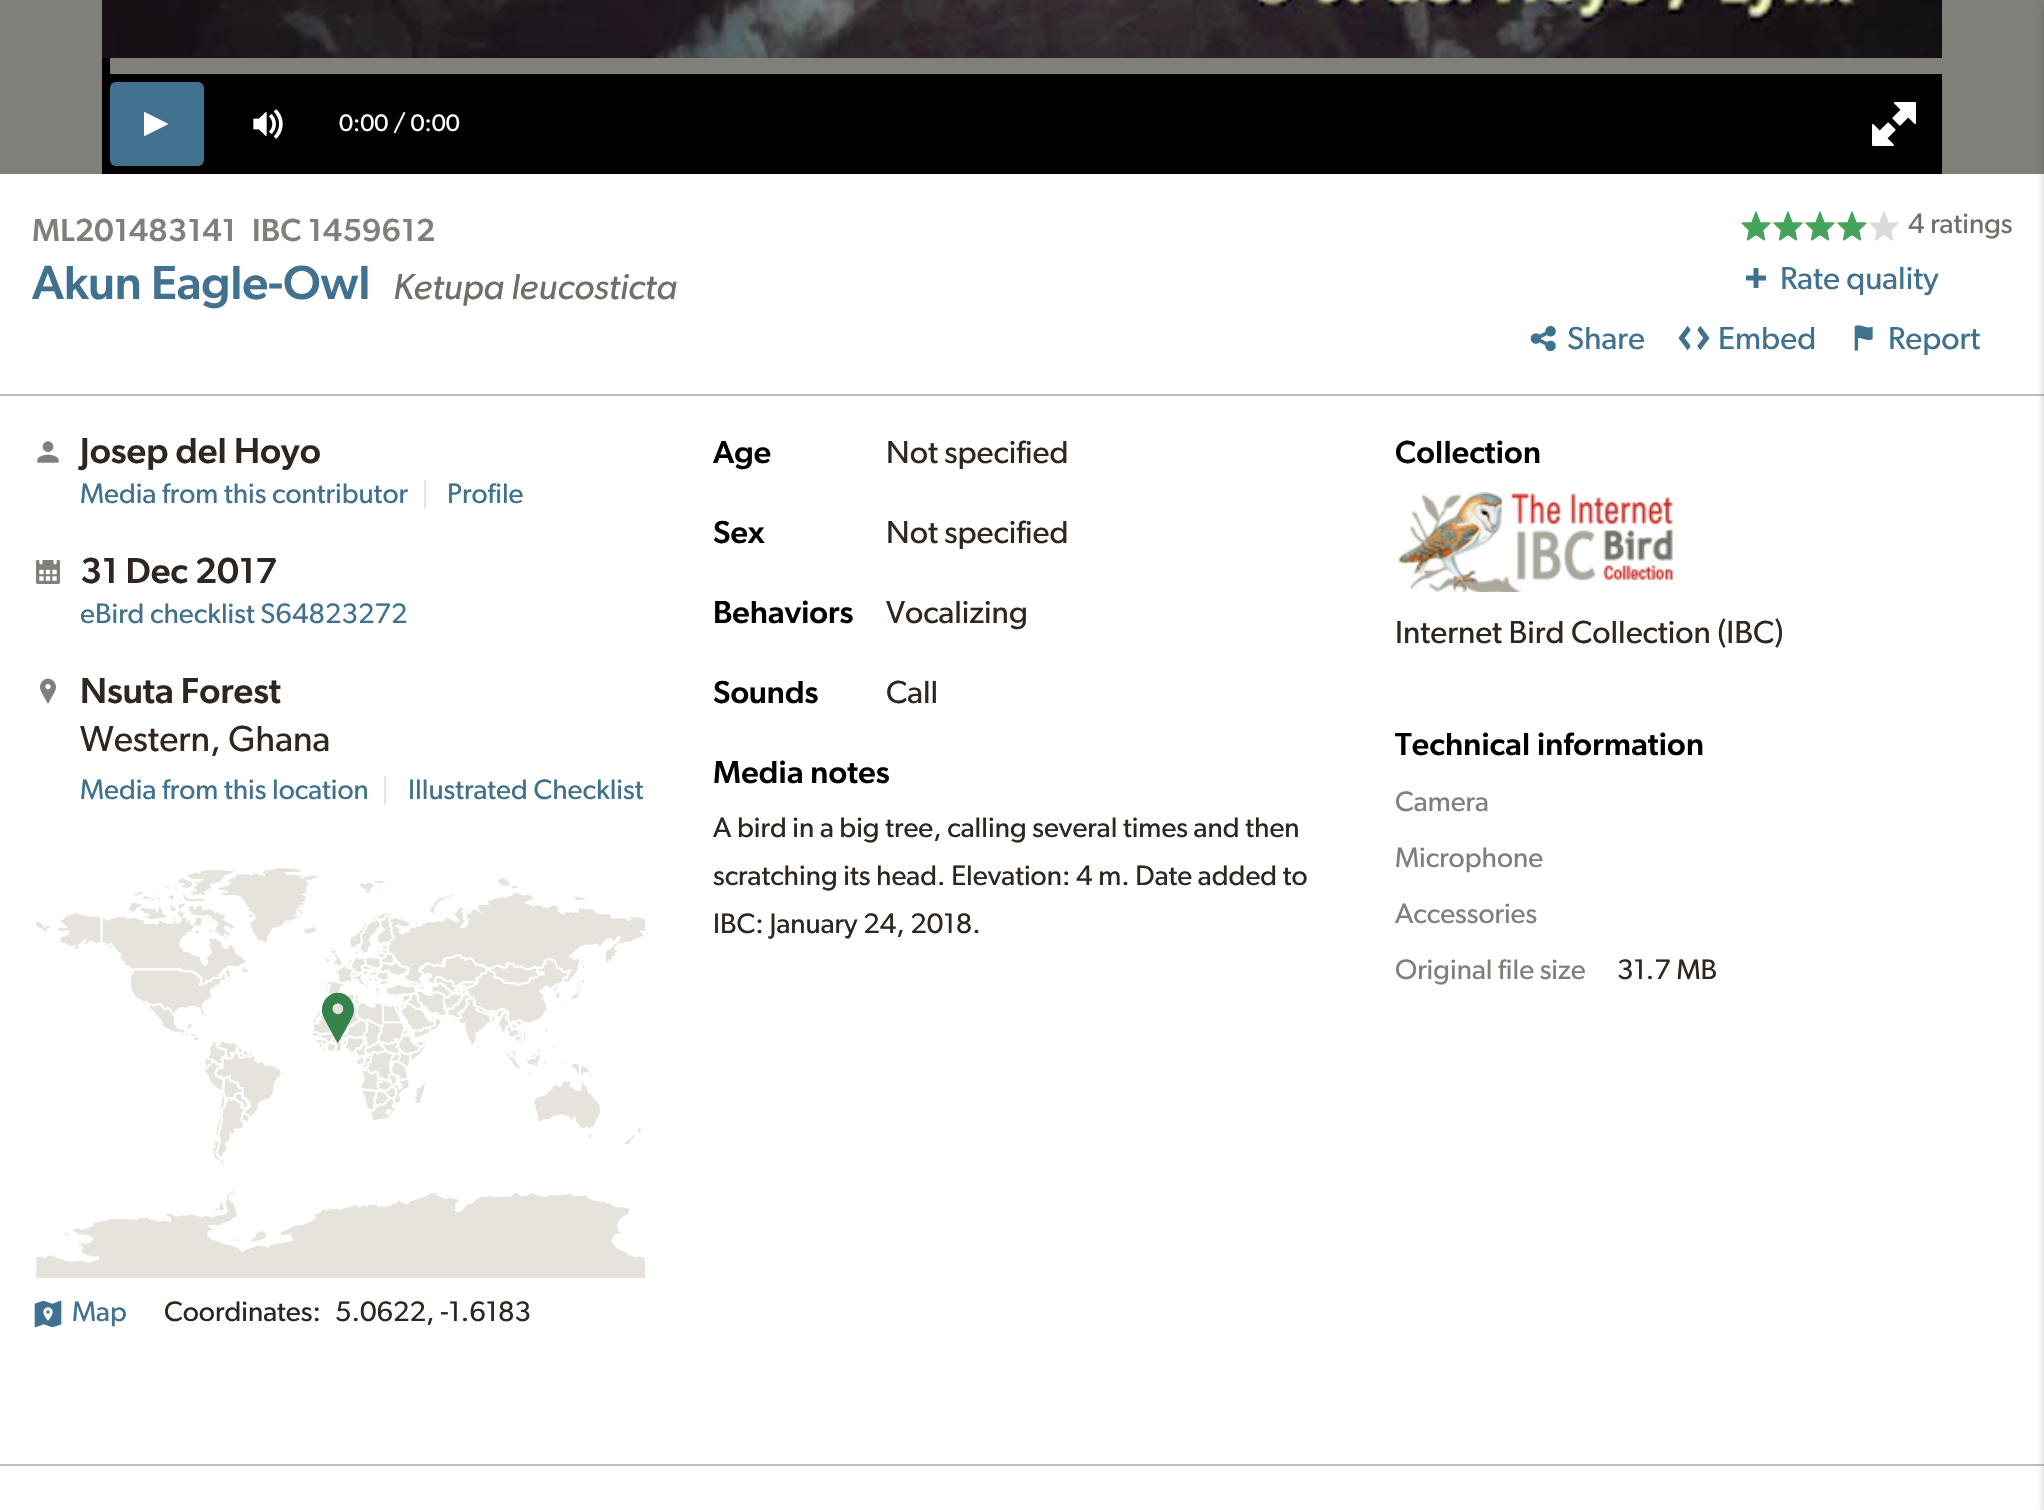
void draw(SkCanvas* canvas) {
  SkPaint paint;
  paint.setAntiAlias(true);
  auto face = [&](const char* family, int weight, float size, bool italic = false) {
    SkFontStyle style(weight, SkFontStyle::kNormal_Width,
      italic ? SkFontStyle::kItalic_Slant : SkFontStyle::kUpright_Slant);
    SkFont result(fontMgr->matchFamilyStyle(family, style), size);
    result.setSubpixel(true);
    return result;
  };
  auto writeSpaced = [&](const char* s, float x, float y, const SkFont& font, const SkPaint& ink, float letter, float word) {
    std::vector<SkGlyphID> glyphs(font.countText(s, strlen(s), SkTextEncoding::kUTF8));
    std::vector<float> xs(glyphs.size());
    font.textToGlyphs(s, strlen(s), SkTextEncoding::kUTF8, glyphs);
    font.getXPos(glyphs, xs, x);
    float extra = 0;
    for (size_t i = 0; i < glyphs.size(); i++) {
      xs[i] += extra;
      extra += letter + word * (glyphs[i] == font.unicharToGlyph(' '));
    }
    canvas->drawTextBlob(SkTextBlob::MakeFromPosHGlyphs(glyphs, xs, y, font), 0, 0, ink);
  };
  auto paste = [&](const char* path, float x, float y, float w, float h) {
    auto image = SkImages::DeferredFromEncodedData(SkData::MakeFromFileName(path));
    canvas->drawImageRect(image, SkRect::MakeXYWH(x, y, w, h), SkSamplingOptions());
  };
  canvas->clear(0xff817f79);
  paint.setColor(0xff000000);
  canvas->drawRect(SkRect::MakeXYWH(102, 74, 1840, 100), paint);
  paste("img/1.png", 102, 0, 1840, 58);
  canvas->drawRect(SkRect::MakeXYWH(102, 58, 8, 16), paint);
  paint.setColor(0xff40718f);
  canvas->drawRoundRect(SkRect::MakeXYWH(110, 82, 94, 84), 6, 6, paint);
  paste("img/2.png", 144, 112, 24, 24);
  paste("img/3.png", 253, 109, 30, 30);
  paste("img/4.png", 1872, 102, 44, 44);
  paint.setColor(0xffffffff);
  canvas->drawRect(SkRect::MakeXYWH(0, 174, 2044, 1336), paint);
  paste("img/5.png", 1741, 211, 30, 30);
  paste("img/5.png", 1773, 211, 30, 30);
  paste("img/5.png", 1805, 211, 30, 30);
  paste("img/5.png", 1837, 211, 30, 30);
  paste("img/6.png", 1869, 211, 30, 30);
  paste("img/7.png", 1746, 268, 20, 20);
  paste("img/8.png", 1530, 326, 26, 26);
  paste("img/9.png", 1678, 326, 32, 24);
  paste("img/10.png", 1854, 325, 19, 26);
  paint.setColor(0xffbfbfbf);
  canvas->drawRect(SkRect::MakeXYWH(0, 394, 2044, 2), paint);
  paste("img/11.png", 37, 441, 22, 22);
  paint.setColor(0xffe5e3dc);
  canvas->drawRect(SkRect::MakeXYWH(424, 480, 2, 28), paint);
  paste("img/12.png", 36, 560, 24, 24);
  paste("img/13.png", 40, 678, 16, 26);
  canvas->drawRect(SkRect::MakeXYWH(384, 776, 2, 28), paint);
  paste("img/14.png", 36, 868, 609, 410);
  paste("img/15.png", 34, 1300, 28, 28);
  paste("img/16.png", 1397, 492, 276, 100);
  paint.setColor(0xffbfbfbf);
  canvas->drawRect(SkRect::MakeXYWH(0, 1464, 2044, 2), paint);
  paint.setColor(0x33000000);
  paint.setMaskFilter(SkMaskFilter::MakeBlur(kNormal_SkBlurStyle, 4));
  canvas->drawRect(SkRect::MakeXYWH(2044, 4, 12, 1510), paint);
  paint.setMaskFilter(nullptr);
  auto f0 = face("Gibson", 400, 24);
  paint.setColor(0xffffffff);
  canvas->drawString("0:00 / 0:00", 339, 131, f0, paint);
  auto f1 = face("Gibson", 500, 32);
  paint.setColor(0xff817f79);
  writeSpaced("ML201483141", 32, 241, f1, paint, 0.2f, 0);
  writeSpaced("IBC 1459612", 252, 241, f1, paint, 0.2f, 0);
  auto f2 = face("Gibson", 500, 48);
  paint.setColor(0xff40718f);
  writeSpaced("Akun Eagle-Owl", 32, 299, f2, paint, -0.25f, 0);
  auto f3 = face("Gibson", 400, 36.25f, true);
  paint.setColor(0xff6f6e67);
  canvas->drawString("Ketupa leucosticta", 393, 299, f3, paint);
  auto f4 = face("Gibson", 400, 28.2f);
  canvas->drawString("4 ratings", 1908, 233, f4, paint);
  auto f5 = face("Gibson", 400, 32);
  paint.setColor(0xff40718f);
  {
    const struct { const char* s; float x, y; } items[] = {
      {"Rate quality", 1780, 289},
      {"Share", 1567, 349},
      {"Embed", 1718, 349},
      {"Report", 1888, 349},
    };
    for (auto [s, x, y] : items) {
      canvas->drawString(s, x, y, f5, paint);
    }
  }
  auto f6 = face("Gibson", 500, 36.25f);
  paint.setColor(0xff2e261f);
  canvas->drawString("Josep del Hoyo", 80, 463, f6, paint);
  paint.setColor(0xff40718f);
  canvas->drawString("Media from this contributor", 80, 503, f4, paint);
  canvas->drawString("Profile", 447, 503, f4, paint);
  paint.setColor(0xff2e261f);
  canvas->drawString("31 Dec 2017", 80, 583, f6, paint);
  paint.setColor(0xff40718f);
  canvas->drawString("eBird checklist S64823272", 80, 623, f4, paint);
  paint.setColor(0xff2e261f);
  canvas->drawString("Nsuta Forest", 80, 703, f6, paint);
  auto f7 = face("Gibson", 400, 36.25f);
  canvas->drawString("Western, Ghana", 80, 751, f7, paint);
  paint.setColor(0xff40718f);
  {
    const struct { const char* s; float x, y; } items[] = {
      {"Media from this location", 80, 799},
      {"Illustrated Checklist", 408, 799},
      {"Map", 72, 1321},
    };
    for (auto [s, x, y] : items) {
      canvas->drawString(s, x, y, f4, paint);
    }
  }
  paint.setColor(0xff2e261f);
  canvas->drawString("Coordinates:", 164, 1321, f4, paint);
  canvas->drawString("5.0622, -1.6183", 335, 1321, f4, paint);
  paint.setColor(0xff000000);
  canvas->drawString("Age", 713, 463, f1, paint);
  paint.setColor(0xff2e261f);
  canvas->drawString("Not specified", 886, 463, f5, paint);
  paint.setColor(0xff000000);
  canvas->drawString("Sex", 713, 543, f1, paint);
  paint.setColor(0xff2e261f);
  canvas->drawString("Not specified", 886, 543, f5, paint);
  paint.setColor(0xff000000);
  canvas->drawString("Behaviors", 713, 623, f1, paint);
  paint.setColor(0xff2e261f);
  canvas->drawString("Vocalizing", 886, 623, f5, paint);
  paint.setColor(0xff000000);
  canvas->drawString("Sounds", 713, 703, f1, paint);
  paint.setColor(0xff2e261f);
  canvas->drawString("Call", 886, 703, f5, paint);
  paint.setColor(0xff000000);
  writeSpaced("Media notes", 713, 783, f1, paint, 0.2f, 0);
  paint.setColor(0xff2e261f);
  {
    const struct { const char* s; float x, y; } items[] = {
      {"A bird in a big tree, calling several times and then", 713, 837},
      {"scratching its head. Elevation: 4 m. Date added to", 713, 885},
      {"IBC: January 24, 2018.", 713, 933},
    };
    for (auto [s, x, y] : items) {
      canvas->drawString(s, x, y, f4, paint);
    }
  }
  paint.setColor(0xff000000);
  writeSpaced("Collection", 1395, 463, f1, paint, 0.2f, 0);
  paint.setColor(0xff2e261f);
  canvas->drawString("Internet Bird Collection (IBC)", 1395, 643, f5, paint);
  paint.setColor(0xff000000);
  writeSpaced("Technical information", 1395, 755, f1, paint, 0.2f, 0);
  paint.setColor(0xff817f79);
  {
    const struct { const char* s; float x, y; } items[] = {
      {"Camera", 1395, 811},
      {"Microphone", 1395, 867},
      {"Accessories", 1395, 923},
      {"Original file size", 1395, 979},
    };
    for (auto [s, x, y] : items) {
      canvas->drawString(s, x, y, f4, paint);
    }
  }
  paint.setColor(0xff2e261f);
  canvas->drawString("31.7 MB", 1617, 979, f4, paint);
}
